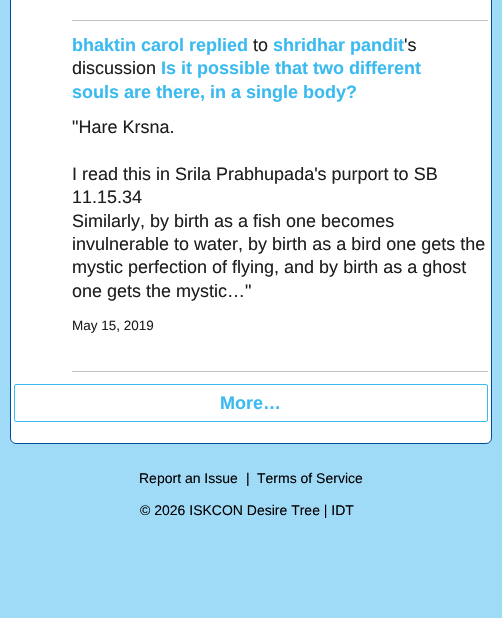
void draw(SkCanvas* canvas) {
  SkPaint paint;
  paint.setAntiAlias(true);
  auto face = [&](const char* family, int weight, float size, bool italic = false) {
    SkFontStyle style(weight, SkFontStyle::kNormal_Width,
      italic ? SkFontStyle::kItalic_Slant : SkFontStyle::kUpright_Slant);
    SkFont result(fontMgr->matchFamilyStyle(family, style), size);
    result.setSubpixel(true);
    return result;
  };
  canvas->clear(0xff9fdaf7);
  paint.setColor(0xffffffff);
  canvas->drawRoundRect(SkRect::MakeXYWH(10.5f, -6.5f, 481, 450), 5.5f, 5.5f, paint);
  paint.setStroke(true);
  paint.setStrokeWidth(1);
  paint.setColor(0xff004d9f);
  canvas->drawRoundRect(SkRect::MakeXYWH(10.5f, -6.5f, 481, 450), 5.5f, 5.5f, paint);
  paint.setStroke(false);
  paint.setColor(0xffc0c0c0);
  canvas->drawRect(SkRect::MakeXYWH(72, 20, 416, 1), paint);
  canvas->drawRect(SkRect::MakeXYWH(72, 371, 416, 1), paint);
  paint.setStroke(true);
  paint.setColor(0xff3bbaf0);
  canvas->drawRoundRect(SkRect::MakeXYWH(14.5f, 384.5f, 473, 37), 1.5f, 1.5f, paint);
  auto f0 = face("Liberation Sans", 700, 18);
  paint.setStroke(false);
  canvas->drawString("bhaktin carol replied", 72, 51, f0, paint);
  auto f1 = face("Liberation Sans", 400, 18);
  paint.setColor(0xff1f1f1f);
  canvas->drawString("to", 253, 51, f1, paint);
  paint.setColor(0xff3bbaf0);
  canvas->drawString("shridhar pandit", 273, 51, f0, paint);
  paint.setColor(0xff1f1f1f);
  canvas->drawString("'s", 404, 51, f1, paint);
  canvas->drawString("discussion", 72, 74, f1, paint);
  paint.setColor(0xff3bbaf0);
  canvas->drawString("Is it possible that two different", 161, 74, f0, paint);
  canvas->drawString("souls are there, in a single body?", 72, 98, f0, paint);
  paint.setColor(0xff1f1f1f);
  {
    const struct { const char* s; float x, y; } items[] = {
      {"\"Hare Krsna.", 72, 133},
      {"I read this in Srila Prabhupada's purport to SB", 72, 180},
      {"11.15.34", 72, 203},
      {"Similarly, by birth as a fish one becomes", 72, 227},
      {"invulnerable to water, by birth as a bird one gets the", 72, 250},
      {"mystic perfection of flying, and by birth as a ghost", 72, 273},
      {"one gets the mystic…\"", 72, 297},
    };
    for (auto [s, x, y] : items) {
      canvas->drawString(s, x, y, f1, paint);
    }
  }
  auto f2 = face("Liberation Sans", 400, 13.5f);
  canvas->drawString("May 15, 2019", 72, 330, f2, paint);
  paint.setColor(0xff3bbaf0);
  canvas->drawString("More…", 220, 409, f0, paint);
  auto f3 = face("Liberation Sans", 400, 14);
  paint.setColor(0xff000000);
  {
    const struct { const char* s; float x, y; } items[] = {
      {"Report an Issue", 139, 483},
      {"|", 246, 483},
      {"Terms of Service", 257, 483},
      {"© 2026 ISKCON Desire Tree | IDT", 140, 515},
    };
    for (auto [s, x, y] : items) {
      canvas->drawString(s, x, y, f3, paint);
    }
  }
}
